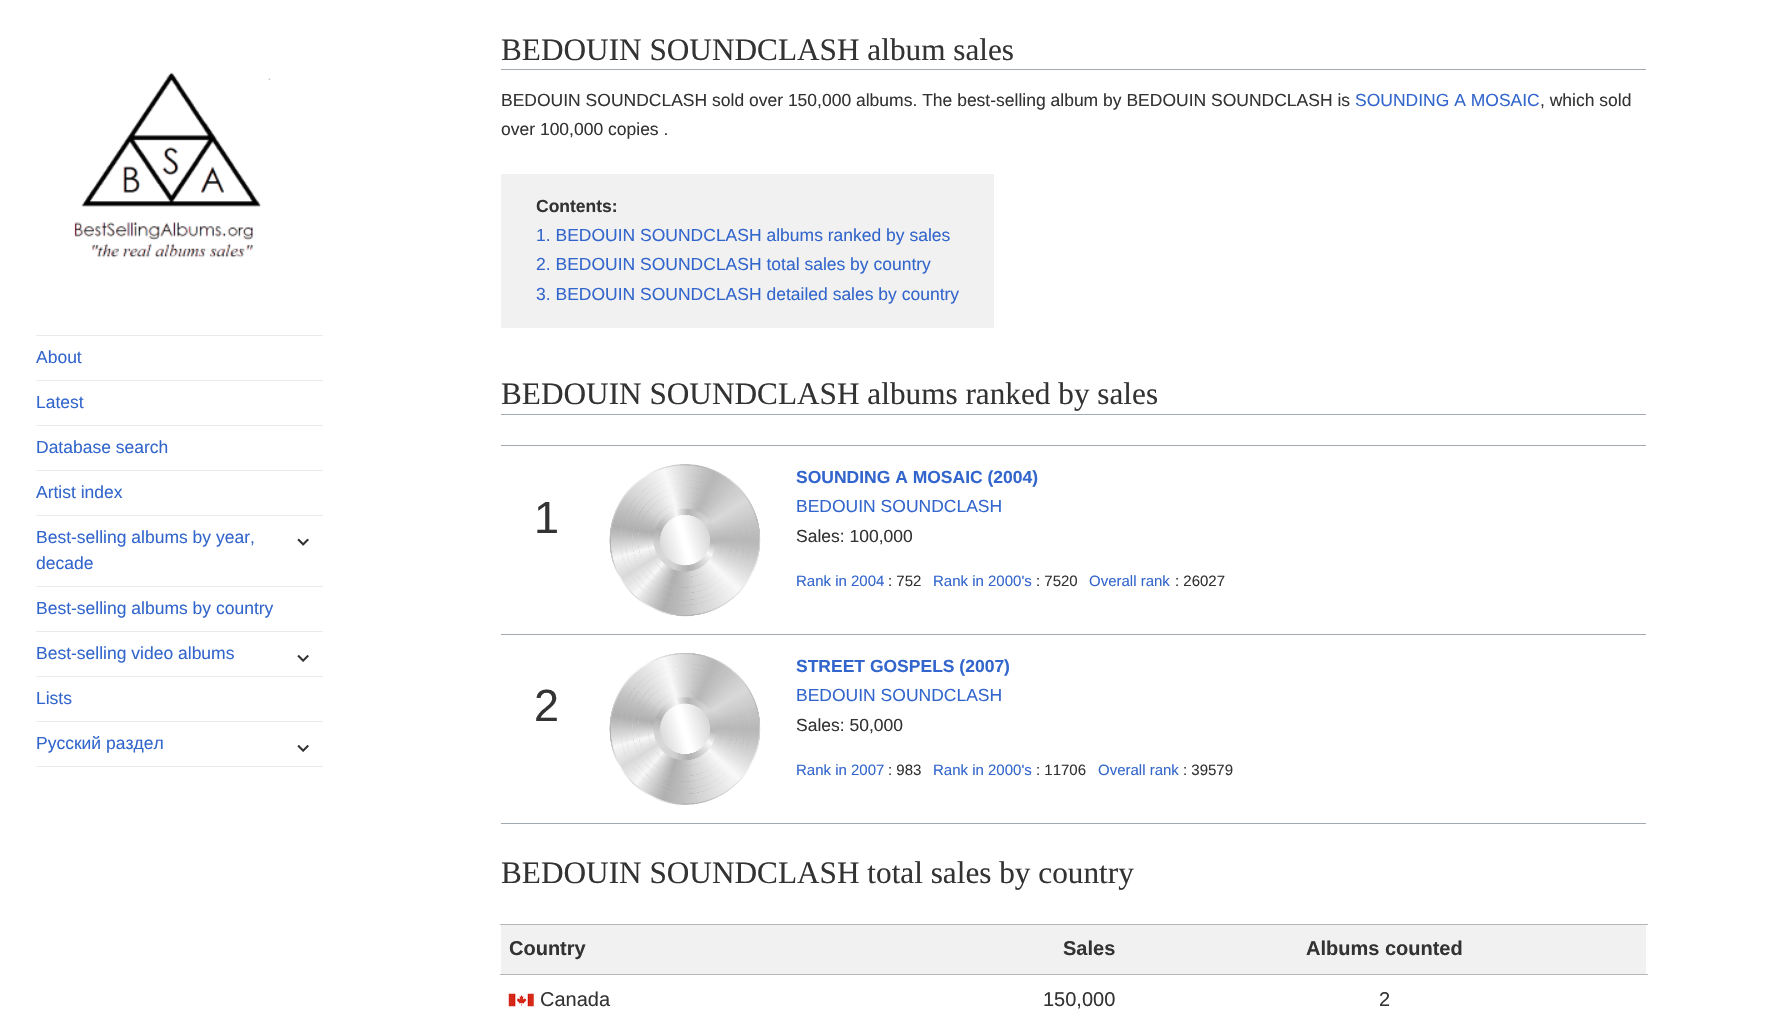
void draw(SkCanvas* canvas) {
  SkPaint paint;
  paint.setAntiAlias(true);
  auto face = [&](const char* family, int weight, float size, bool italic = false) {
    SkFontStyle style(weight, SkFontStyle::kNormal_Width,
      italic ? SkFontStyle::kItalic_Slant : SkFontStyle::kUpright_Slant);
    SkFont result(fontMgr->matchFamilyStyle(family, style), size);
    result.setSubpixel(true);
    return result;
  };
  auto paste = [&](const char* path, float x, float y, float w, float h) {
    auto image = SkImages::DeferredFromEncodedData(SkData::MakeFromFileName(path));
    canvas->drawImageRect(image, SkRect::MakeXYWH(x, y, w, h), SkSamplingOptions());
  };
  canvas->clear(0xffffffff);
  paste("img/1.png", 74, 72, 197, 186);
  {
    const struct { float x, y, w, h; SkColor color; } items[] = {
      {36, 335, 287, 1, 0xffebebeb},
      {36, 766, 287, 1, 0xffebebeb},
      {36, 380, 287, 1, 0xffebebeb},
      {36, 425, 287, 1, 0xffebebeb},
      {36, 470, 287, 1, 0xffebebeb},
      {36, 515, 287, 1, 0xffebebeb},
    };
    for (auto [x, y, w, h, color] : items) {
      paint.setColor(color);
      canvas->drawRect(SkRect::MakeXYWH(x, y, w, h), paint);
    }
  }
  paste("img/2.png", 297, 538, 12, 8);
  paste("img/3.png", 297, 538, 12, 8);
  canvas->drawRect(SkRect::MakeXYWH(36, 586, 287, 1), paint);
  canvas->drawRect(SkRect::MakeXYWH(36, 631, 287, 1), paint);
  paste("img/4.png", 297, 655, 12, 7);
  paste("img/5.png", 297, 655, 12, 7);
  canvas->drawRect(SkRect::MakeXYWH(36, 676, 287, 1), paint);
  canvas->drawRect(SkRect::MakeXYWH(36, 721, 287, 1), paint);
  paste("img/4.png", 297, 745, 12, 7);
  paste("img/5.png", 297, 745, 12, 7);
  {
    const struct { float x, y, w, h; SkColor color; } items[] = {
      {501, 69, 1145, 1, 0xffa2a9b1},
      {501, 174, 493, 154, 0xfff1f1f1},
      {501, 414, 1145, 1, 0xffa2a9b1},
      {501, 445, 1145, 1, 0xffa2a9b1},
      {501, 634, 1145, 1, 0xffa2a9b1},
    };
    for (auto [x, y, w, h, color] : items) {
      paint.setColor(color);
      canvas->drawRect(SkRect::MakeXYWH(x, y, w, h), paint);
    }
  }
  paste("img/6.png", 609, 464, 152, 153);
  canvas->drawRect(SkRect::MakeXYWH(501, 823, 1145, 1), paint);
  paste("img/7.png", 609, 653, 152, 152);
  {
    const struct { float x, y, w, h; SkColor color; } items[] = {
      {501, 925, 1145, 49, 0xfff1f1f1},
      {500, 924, 1148, 1, 0xffb5b6b7},
      {500, 974, 1148, 1, 0xffb5b6b7},
    };
    for (auto [x, y, w, h, color] : items) {
      paint.setColor(color);
      canvas->drawRect(SkRect::MakeXYWH(x, y, w, h), paint);
    }
  }
  paste("img/8.png", 508, 993, 26, 14);
  auto f0 = face("Liberation Sans", 400, 17.5f);
  paint.setColor(0xff3366cc);
  {
    const struct { const char* s; float x, y; } items[] = {
      {"About", 36, 363},
      {"Latest", 36, 408},
      {"Database search", 36, 453},
      {"Artist index", 36, 498},
      {"Best-selling albums by year,", 36, 543},
      {"decade", 36, 569},
      {"Best-selling albums by country", 36, 614},
      {"Best-selling video albums", 36, 659},
      {"Lists", 36, 704},
      {"Русский раздел", 36, 749},
    };
    for (auto [s, x, y] : items) {
      canvas->drawString(s, x, y, f0, paint);
    }
  }
  auto f1 = face("Liberation Serif", 400, 31.25f);
  paint.setColor(0xff333333);
  canvas->drawString("BEDOUIN SOUNDCLASH album sales", 501, 60, f1, paint);
  canvas->drawString("BEDOUIN SOUNDCLASH sold over 150,000 albums. The best-selling album by BEDOUIN SOUNDCLASH is", 501, 106, f0, paint);
  paint.setColor(0xff3366cc);
  canvas->drawString("SOUNDING A MOSAIC", 1355, 106, f0, paint);
  paint.setColor(0xff333333);
  canvas->drawString(", which sold", 1540, 106, f0, paint);
  canvas->drawString("over 100,000 copies .", 501, 135, f0, paint);
  auto f2 = face("Liberation Sans", 700, 17.5f);
  canvas->drawString("Contents:", 536, 212, f2, paint);
  paint.setColor(0xff3366cc);
  {
    const struct { const char* s; float x, y; } items[] = {
      {"1. BEDOUIN SOUNDCLASH albums ranked by sales", 536, 241},
      {"2. BEDOUIN SOUNDCLASH total sales by country", 536, 270},
      {"3. BEDOUIN SOUNDCLASH detailed sales by country", 536, 300},
    };
    for (auto [s, x, y] : items) {
      canvas->drawString(s, x, y, f0, paint);
    }
  }
  paint.setColor(0xff333333);
  canvas->drawString("BEDOUIN SOUNDCLASH albums ranked by sales", 501, 404, f1, paint);
  auto f3 = face("Liberation Sans", 400, 45);
  canvas->drawString("1", 534, 533, f3, paint);
  paint.setColor(0xff3366cc);
  canvas->drawString("SOUNDING A MOSAIC (2004)", 796, 483, f2, paint);
  canvas->drawString("BEDOUIN SOUNDCLASH", 796, 512, f0, paint);
  paint.setColor(0xff333333);
  canvas->drawString("Sales: 100,000", 796, 542, f0, paint);
  auto f4 = face("Liberation Sans", 400, 15);
  paint.setColor(0xff3366cc);
  canvas->drawString("Rank in 2004", 796, 586, f4, paint);
  paint.setColor(0xff333333);
  canvas->drawString(": 752", 888, 586, f4, paint);
  paint.setColor(0xff3366cc);
  canvas->drawString("Rank in 2000's", 933, 586, f4, paint);
  paint.setColor(0xff333333);
  canvas->drawString(": 7520", 1036, 586, f4, paint);
  paint.setColor(0xff3366cc);
  canvas->drawString("Overall rank", 1089, 586, f4, paint);
  paint.setColor(0xff333333);
  canvas->drawString(": 26027", 1175, 586, f4, paint);
  canvas->drawString("2", 534, 721, f3, paint);
  paint.setColor(0xff3366cc);
  canvas->drawString("STREET GOSPELS (2007)", 796, 672, f2, paint);
  canvas->drawString("BEDOUIN SOUNDCLASH", 796, 701, f0, paint);
  paint.setColor(0xff333333);
  canvas->drawString("Sales: 50,000", 796, 731, f0, paint);
  paint.setColor(0xff3366cc);
  canvas->drawString("Rank in 2007", 796, 775, f4, paint);
  paint.setColor(0xff333333);
  canvas->drawString(": 983", 888, 775, f4, paint);
  paint.setColor(0xff3366cc);
  canvas->drawString("Rank in 2000's", 933, 775, f4, paint);
  paint.setColor(0xff333333);
  canvas->drawString(": 11706", 1036, 775, f4, paint);
  paint.setColor(0xff3366cc);
  canvas->drawString("Overall rank", 1098, 775, f4, paint);
  paint.setColor(0xff333333);
  canvas->drawString(": 39579", 1183, 775, f4, paint);
  canvas->drawString("BEDOUIN SOUNDCLASH total sales by country", 501, 883, f1, paint);
  auto f5 = face("Liberation Sans", 700, 20);
  {
    const struct { const char* s; float x, y; } items[] = {
      {"Country", 509, 955},
      {"Sales", 1063, 955},
      {"Albums counted", 1306, 955},
    };
    for (auto [s, x, y] : items) {
      canvas->drawString(s, x, y, f5, paint);
    }
  }
  auto f6 = face("Liberation Sans", 400, 20);
  {
    const struct { const char* s; float x, y; } items[] = {
      {"Canada", 540, 1006},
      {"150,000", 1043, 1006},
      {"2", 1379, 1006},
    };
    for (auto [s, x, y] : items) {
      canvas->drawString(s, x, y, f6, paint);
    }
  }
}
